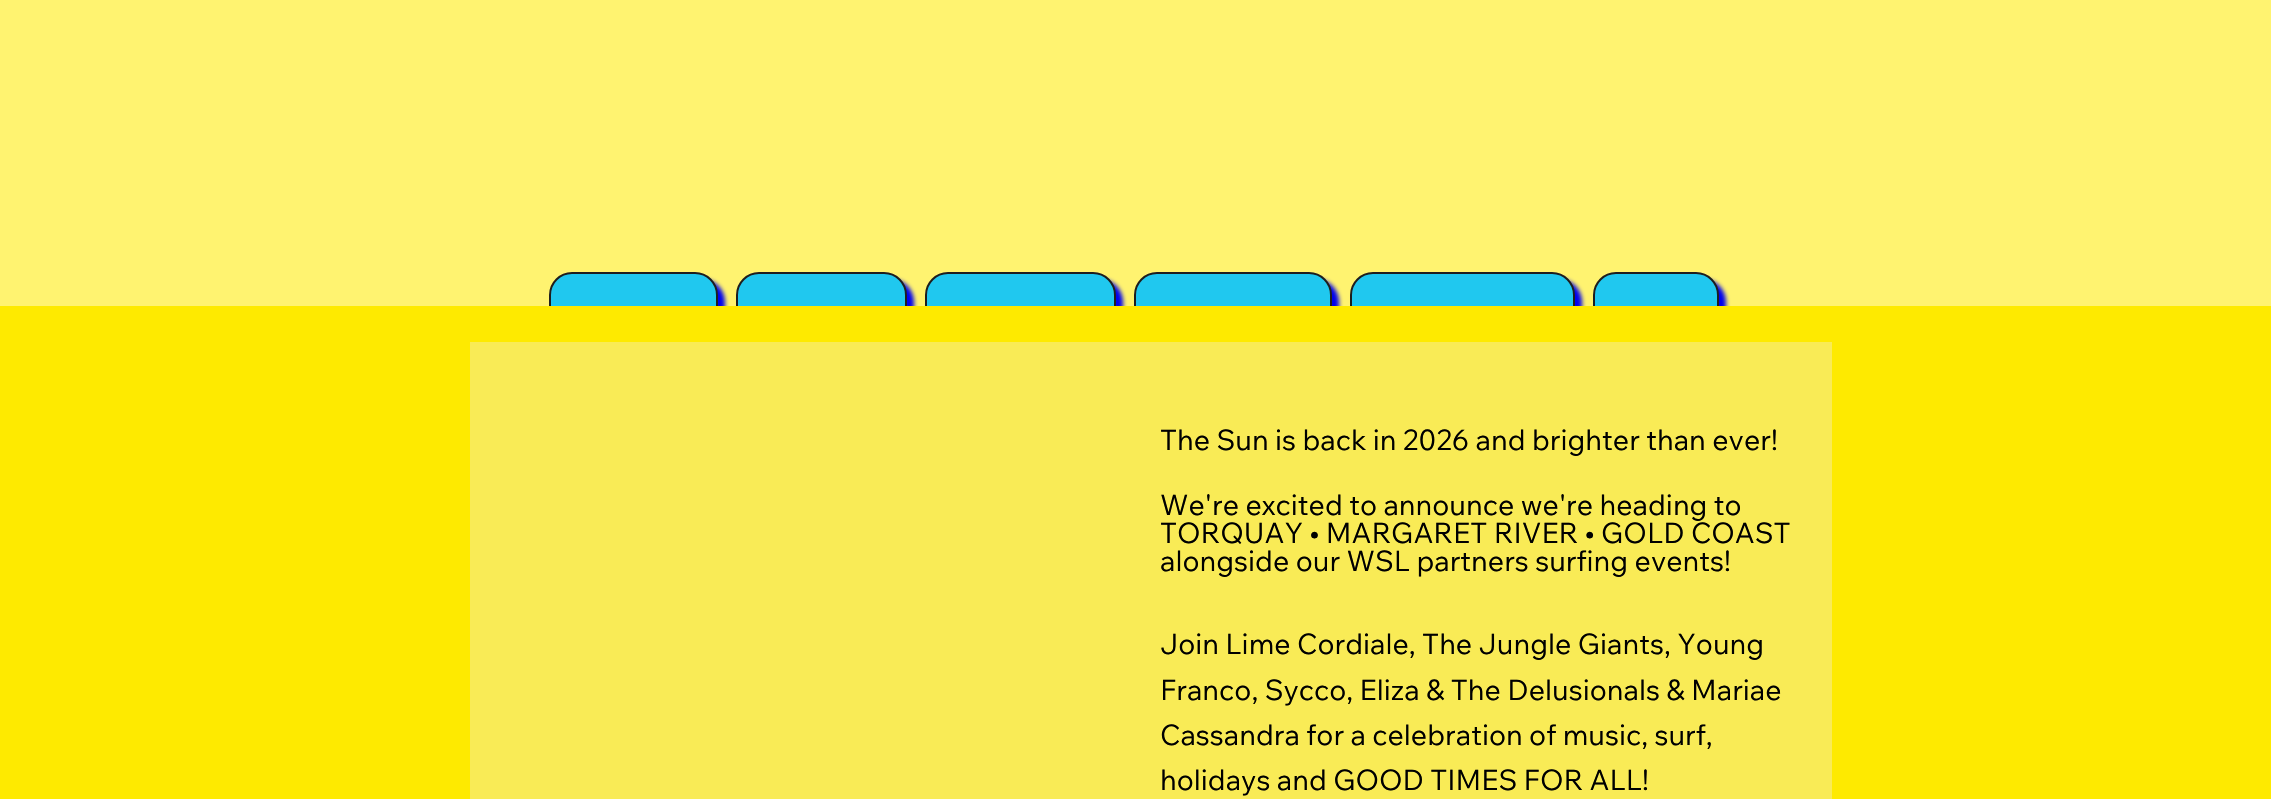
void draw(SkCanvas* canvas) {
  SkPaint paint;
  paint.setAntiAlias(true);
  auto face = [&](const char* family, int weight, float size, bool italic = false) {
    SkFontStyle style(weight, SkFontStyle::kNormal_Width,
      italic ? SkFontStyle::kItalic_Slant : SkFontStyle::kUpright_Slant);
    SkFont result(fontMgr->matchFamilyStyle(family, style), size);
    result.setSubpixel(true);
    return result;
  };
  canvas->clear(0xfffff370);
  paint.setColor(0xff0000ee);
  paint.setMaskFilter(SkMaskFilter::MakeBlur(kNormal_SkBlurStyle, 2));
  canvas->drawRoundRect(SkRect::MakeXYWH(556, 279, 169, 72), 23, 23, paint);
  paint.setMaskFilter(nullptr);
  paint.setColor(0xff20c8ef);
  canvas->drawRoundRect(SkRect::MakeXYWH(550, 273, 167, 70), 22, 22, paint);
  paint.setStroke(true);
  paint.setStrokeWidth(2);
  paint.setColor(0xff1e1e1e);
  canvas->drawRoundRect(SkRect::MakeXYWH(550, 273, 167, 70), 22, 22, paint);
  paint.setStroke(false);
  paint.setColor(0xff0000ee);
  paint.setMaskFilter(SkMaskFilter::MakeBlur(kNormal_SkBlurStyle, 2));
  canvas->drawRoundRect(SkRect::MakeXYWH(743, 279, 171, 72), 23, 23, paint);
  paint.setMaskFilter(nullptr);
  paint.setColor(0xff20c8ef);
  canvas->drawRoundRect(SkRect::MakeXYWH(737, 273, 169, 70), 22, 22, paint);
  paint.setStroke(true);
  paint.setColor(0xff1e1e1e);
  canvas->drawRoundRect(SkRect::MakeXYWH(737, 273, 169, 70), 22, 22, paint);
  paint.setStroke(false);
  paint.setColor(0xff0000ee);
  paint.setMaskFilter(SkMaskFilter::MakeBlur(kNormal_SkBlurStyle, 2));
  canvas->drawRoundRect(SkRect::MakeXYWH(932, 279, 191, 72), 23, 23, paint);
  paint.setMaskFilter(nullptr);
  paint.setColor(0xff20c8ef);
  canvas->drawRoundRect(SkRect::MakeXYWH(926, 273, 189, 70), 22, 22, paint);
  paint.setStroke(true);
  paint.setColor(0xff1e1e1e);
  canvas->drawRoundRect(SkRect::MakeXYWH(926, 273, 189, 70), 22, 22, paint);
  paint.setStroke(false);
  paint.setColor(0xff0000ee);
  paint.setMaskFilter(SkMaskFilter::MakeBlur(kNormal_SkBlurStyle, 2));
  canvas->drawRoundRect(SkRect::MakeXYWH(1141, 279, 198, 72), 23, 23, paint);
  paint.setMaskFilter(nullptr);
  paint.setColor(0xff20c8ef);
  canvas->drawRoundRect(SkRect::MakeXYWH(1135, 273, 196, 70), 22, 22, paint);
  paint.setStroke(true);
  paint.setColor(0xff1e1e1e);
  canvas->drawRoundRect(SkRect::MakeXYWH(1135, 273, 196, 70), 22, 22, paint);
  paint.setStroke(false);
  paint.setColor(0xff0000ee);
  paint.setMaskFilter(SkMaskFilter::MakeBlur(kNormal_SkBlurStyle, 2));
  canvas->drawRoundRect(SkRect::MakeXYWH(1357, 279, 225, 72), 23, 23, paint);
  paint.setMaskFilter(nullptr);
  paint.setColor(0xff20c8ef);
  canvas->drawRoundRect(SkRect::MakeXYWH(1351, 273, 223, 70), 22, 22, paint);
  paint.setStroke(true);
  paint.setColor(0xff1e1e1e);
  canvas->drawRoundRect(SkRect::MakeXYWH(1351, 273, 223, 70), 22, 22, paint);
  paint.setStroke(false);
  paint.setColor(0xff0000ee);
  paint.setMaskFilter(SkMaskFilter::MakeBlur(kNormal_SkBlurStyle, 2));
  canvas->drawRoundRect(SkRect::MakeXYWH(1600, 279, 126, 72), 23, 23, paint);
  paint.setMaskFilter(nullptr);
  paint.setColor(0xff20c8ef);
  canvas->drawRoundRect(SkRect::MakeXYWH(1594, 273, 124, 70), 22, 22, paint);
  paint.setStroke(true);
  paint.setColor(0xff1e1e1e);
  canvas->drawRoundRect(SkRect::MakeXYWH(1594, 273, 124, 70), 22, 22, paint);
  paint.setStroke(false);
  paint.setColor(0xfffeea00);
  canvas->drawRect(SkRect::MakeXYWH(0, 306, 2271, 493), paint);
  paint.setColor(0xfff9eb56);
  canvas->drawRect(SkRect::MakeXYWH(470, 342, 1362, 457), paint);
  auto f0 = face("Wix Madefor Text", 400, 28.4f);
  paint.setColor(0xff000000);
  {
    const struct { const char* s; float x, y; } items[] = {
      {"The Sun is back in 2026 and brighter than ever!", 1160, 450},
      {"We're excited to announce we're heading to", 1160, 515},
      {"TORQUAY • MARGARET RIVER • GOLD COAST", 1160, 543},
      {"alongside our WSL partners surfing events!", 1160, 571},
      {"Join Lime Cordiale, The Jungle Giants, Young", 1160, 654},
      {"Franco, Sycco, Eliza & The Delusionals & Mariae", 1160, 700},
      {"Cassandra for a celebration of music, surf,", 1160, 745},
      {"holidays and GOOD TIMES FOR ALL!", 1160, 790},
    };
    for (auto [s, x, y] : items) {
      canvas->drawString(s, x, y, f0, paint);
    }
  }
}
